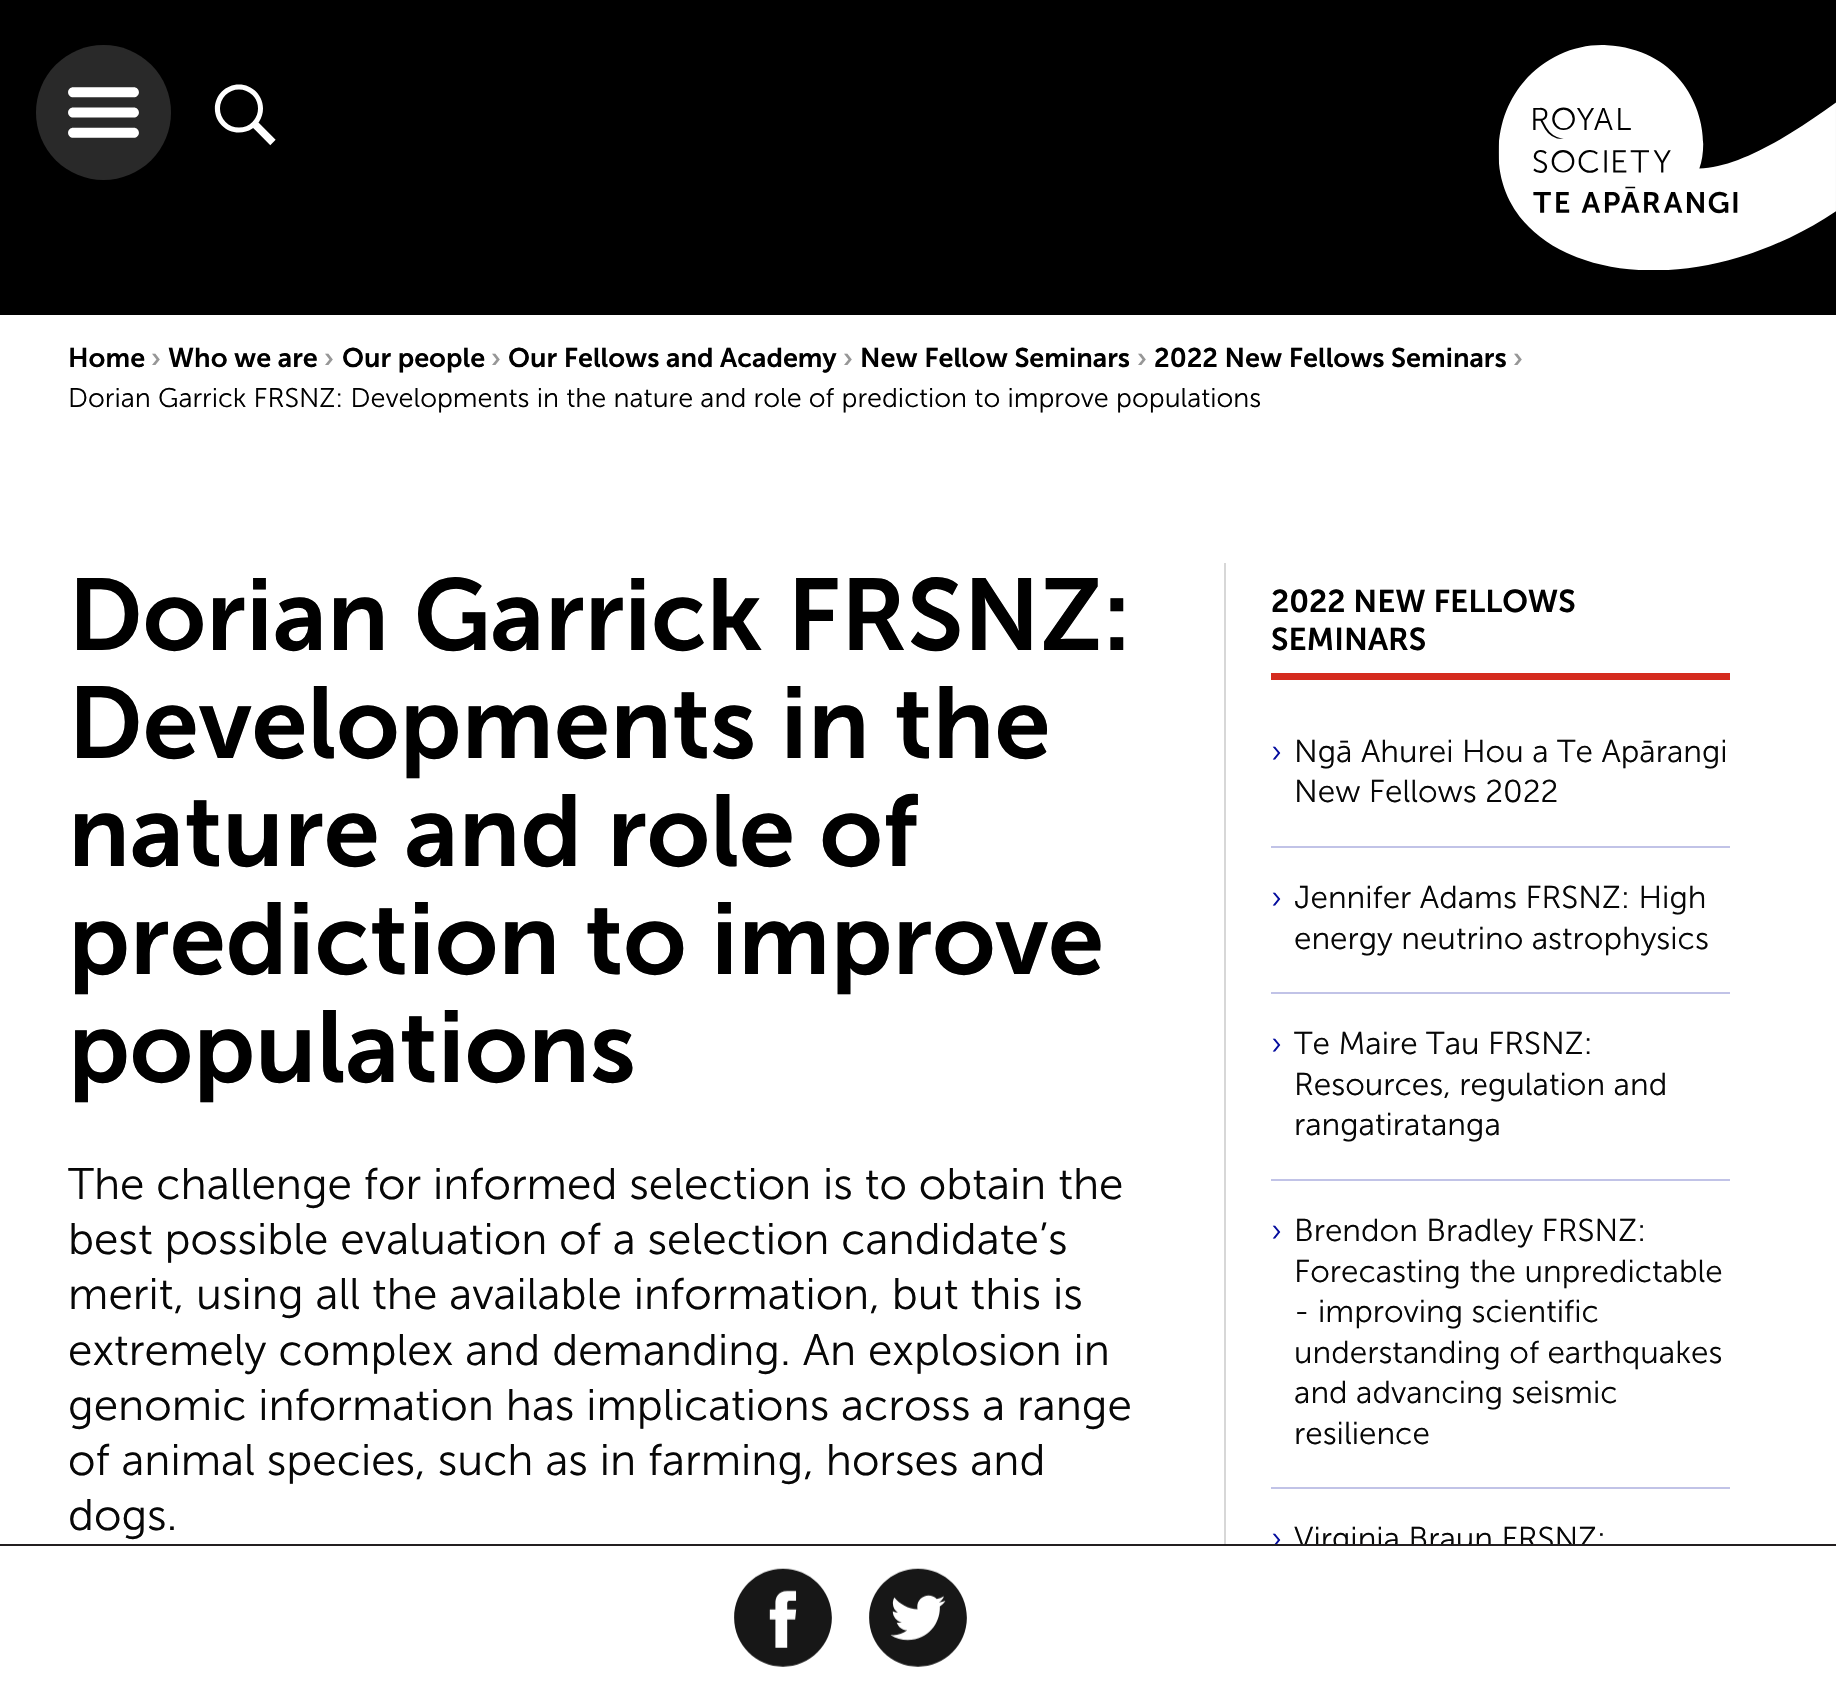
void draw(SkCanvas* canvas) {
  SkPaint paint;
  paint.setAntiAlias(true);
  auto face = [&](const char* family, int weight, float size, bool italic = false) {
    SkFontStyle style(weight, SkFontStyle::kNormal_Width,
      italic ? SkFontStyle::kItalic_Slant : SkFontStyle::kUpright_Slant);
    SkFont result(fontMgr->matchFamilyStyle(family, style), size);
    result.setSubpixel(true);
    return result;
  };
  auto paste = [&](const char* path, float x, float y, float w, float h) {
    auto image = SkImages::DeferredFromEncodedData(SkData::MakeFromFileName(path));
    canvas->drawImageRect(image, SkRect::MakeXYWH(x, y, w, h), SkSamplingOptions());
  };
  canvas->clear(0xffffffff);
  paint.setColor(0xff000000);
  canvas->drawRect(SkRect::MakeXYWH(0, 0, 1836, 315), paint);
  paint.setColor(0xff292929);
  canvas->drawCircle(103.5f, 112.5f, 67.5f, paint);
  paste("img/1.png", 68, 87, 71, 51);
  paste("img/2.png", 214, 84, 62, 62);
  paste("img/3.png", 1498, 45, 338, 225);
  {
    const struct { float x, y, w, h; SkColor color; } items[] = {
      {1224, 563, 2, 981, 0xffd7d7d7},
      {1271, 673, 459, 7, 0xffd52b1e},
      {1271, 846, 459, 2, 0xffc1c3e7},
      {1271, 992, 459, 2, 0xffc1c3e7},
      {1271, 1179, 459, 2, 0xffc1c3e7},
      {1271, 1487, 459, 2, 0xffc1c3e7},
    };
    for (auto [x, y, w, h, color] : items) {
      paint.setColor(color);
      canvas->drawRect(SkRect::MakeXYWH(x, y, w, h), paint);
    }
  }
  paste("img/4.png", 734, 1568, 98, 99);
  paste("img/5.png", 869, 1568, 98, 99);
  auto f0 = face("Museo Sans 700", 600, 27);
  paint.setColor(0xff000000);
  canvas->drawString("Home", 68, 367, f0, paint);
  paint.setColor(0xff979797);
  canvas->drawString("›", 151, 367, f0, paint);
  paint.setColor(0xff000000);
  canvas->drawString("Who we are", 168, 367, f0, paint);
  paint.setColor(0xff979797);
  canvas->drawString("›", 324, 367, f0, paint);
  paint.setColor(0xff000000);
  canvas->drawString("Our people", 342, 367, f0, paint);
  paint.setColor(0xff979797);
  canvas->drawString("›", 491, 367, f0, paint);
  paint.setColor(0xff000000);
  canvas->drawString("Our Fellows and Academy", 508, 367, f0, paint);
  paint.setColor(0xff979797);
  canvas->drawString("›", 843, 367, f0, paint);
  paint.setColor(0xff000000);
  canvas->drawString("New Fellow Seminars", 860, 367, f0, paint);
  paint.setColor(0xff979797);
  canvas->drawString("›", 1137, 367, f0, paint);
  paint.setColor(0xff000000);
  canvas->drawString("2022 New Fellows Seminars", 1154, 367, f0, paint);
  paint.setColor(0xff979797);
  canvas->drawString("›", 1513, 367, f0, paint);
  auto f1 = face("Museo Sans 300", 300, 27);
  paint.setColor(0xff000000);
  canvas->drawString("Dorian Garrick FRSNZ: Developments in the nature and role of prediction to improve populations", 68, 407, f1, paint);
  auto f2 = face("Museo Sans 700", 600, 101.25f);
  {
    const struct { const char* s; float x, y; } items[] = {
      {"Dorian Garrick FRSNZ:", 68, 650},
      {"Developments in the", 68, 758},
      {"nature and role of", 68, 866},
      {"prediction to improve", 68, 974},
      {"populations", 68, 1082},
    };
    for (auto [s, x, y] : items) {
      canvas->drawString(s, x, y, f2, paint);
    }
  }
  auto f3 = face("Museo Sans 300", 300, 44.1f);
  paint.setColor(0xff070707);
  {
    const struct { const char* s; float x, y; } items[] = {
      {"The challenge for informed selection is to obtain the", 68, 1199},
      {"best possible evaluation of a selection candidate’s", 68, 1254},
      {"merit, using all the available information, but this is", 68, 1309},
      {"extremely complex and demanding. An explosion in", 68, 1365},
      {"genomic information has implications across a range", 68, 1420},
      {"of animal species, such as in farming, horses and", 68, 1475},
      {"dogs.", 68, 1530},
    };
    for (auto [s, x, y] : items) {
      canvas->drawString(s, x, y, f3, paint);
    }
  }
  auto f4 = face("Museo Sans 700", 600, 31.5f);
  paint.setColor(0xff000000);
  canvas->drawString("2022 NEW FELLOWS", 1271, 612, f4, paint);
  canvas->drawString("SEMINARS", 1271, 650, f4, paint);
  auto f5 = face("Museo Sans 300", 300, 31.5f);
  paint.setColor(0xff050d9e);
  canvas->drawString("›", 1271, 762, f5, paint);
  paint.setColor(0xff070707);
  canvas->drawString("Ngā Ahurei Hou a Te Apārangi", 1294, 762, f5, paint);
  canvas->drawString("New Fellows 2022", 1294, 802, f5, paint);
  paint.setColor(0xff050d9e);
  canvas->drawString("›", 1271, 908, f5, paint);
  paint.setColor(0xff070707);
  canvas->drawString("Jennifer Adams FRSNZ: High", 1294, 908, f5, paint);
  canvas->drawString("energy neutrino astrophysics", 1294, 949, f5, paint);
  paint.setColor(0xff050d9e);
  canvas->drawString("›", 1271, 1054, f5, paint);
  paint.setColor(0xff070707);
  {
    const struct { const char* s; float x, y; } items[] = {
      {"Te Maire Tau FRSNZ:", 1294, 1054},
      {"Resources, regulation and", 1294, 1095},
      {"rangatiratanga", 1294, 1135},
    };
    for (auto [s, x, y] : items) {
      canvas->drawString(s, x, y, f5, paint);
    }
  }
  paint.setColor(0xff050d9e);
  canvas->drawString("›", 1271, 1241, f5, paint);
  paint.setColor(0xff070707);
  {
    const struct { const char* s; float x, y; } items[] = {
      {"Brendon Bradley FRSNZ:", 1294, 1241},
      {"Forecasting the unpredictable", 1294, 1282},
      {"- improving scientific", 1294, 1322},
      {"understanding of earthquakes", 1294, 1363},
      {"and advancing seismic", 1294, 1403},
      {"resilience", 1294, 1444},
    };
    for (auto [s, x, y] : items) {
      canvas->drawString(s, x, y, f5, paint);
    }
  }
  paint.setColor(0xff050d9e);
  canvas->drawString("›", 1271, 1549, f5, paint);
  paint.setColor(0xff070707);
  canvas->drawString("Virginia Braun FRSNZ:", 1294, 1549, f5, paint);
  paint.setColor(0xffffffff);
  canvas->drawRect(SkRect::MakeXYWH(1273, 1546, 330, 10), paint);
  paint.setColor(0xff231f20);
  canvas->drawRect(SkRect::MakeXYWH(0, 1544, 1836, 2), paint);
}
